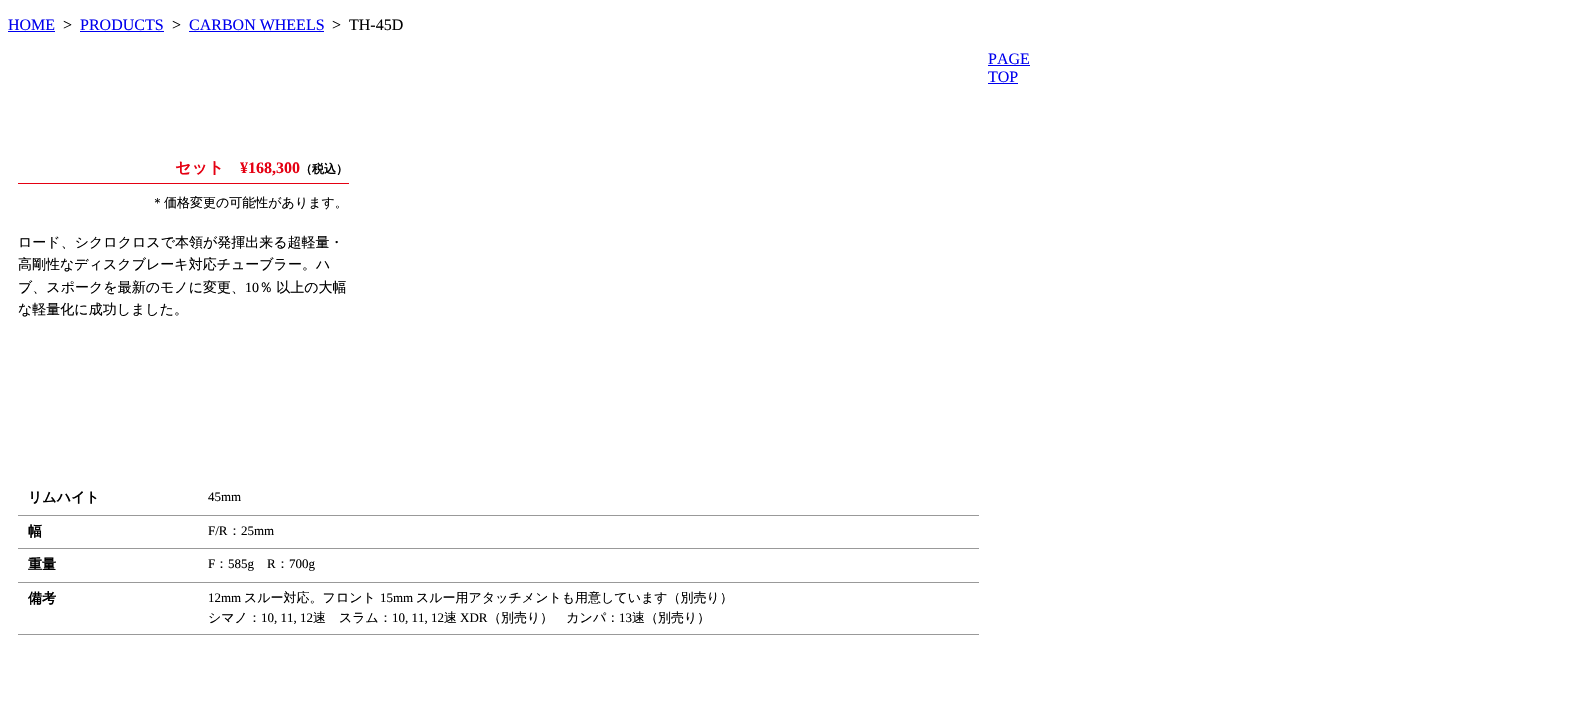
void draw(SkCanvas* canvas) {
  SkPaint paint;
  paint.setAntiAlias(true);
  auto face = [&](const char* family, int weight, float size, bool italic = false) {
    SkFontStyle style(weight, SkFontStyle::kNormal_Width,
      italic ? SkFontStyle::kItalic_Slant : SkFontStyle::kUpright_Slant);
    SkFont result(fontMgr->matchFamilyStyle(family, style), size);
    result.setSubpixel(true);
    return result;
  };
  auto writeSpaced = [&](const char* s, float x, float y, const SkFont& font, const SkPaint& ink, float letter, float word) {
    std::vector<SkGlyphID> glyphs(font.countText(s, strlen(s), SkTextEncoding::kUTF8));
    std::vector<float> xs(glyphs.size());
    font.textToGlyphs(s, strlen(s), SkTextEncoding::kUTF8, glyphs);
    font.getXPos(glyphs, xs, x);
    float extra = 0;
    for (size_t i = 0; i < glyphs.size(); i++) {
      xs[i] += extra;
      extra += letter + word * (glyphs[i] == font.unicharToGlyph(' '));
    }
    canvas->drawTextBlob(SkTextBlob::MakeFromPosHGlyphs(glyphs, xs, y, font), 0, 0, ink);
  };
  canvas->clear(0xffffffff);
  {
    const struct { float x, y, w, h; SkColor color; } items[] = {
      {8, 31, 47, 1, 0xff0000ee},
      {80, 31, 84, 1, 0xff0000ee},
      {189, 31, 135, 1, 0xff0000ee},
      {988, 65, 42, 1, 0xff0000ee},
      {988, 83, 30, 1, 0xff0000ee},
      {18, 183, 331, 1, 0xffe50012},
      {18, 515, 961, 1, 0xff999999},
      {18, 548, 961, 1, 0xff999999},
      {18, 582, 961, 1, 0xff999999},
      {18, 634, 961, 1, 0xff999999},
    };
    for (auto [x, y, w, h, color] : items) {
      paint.setColor(color);
      canvas->drawRect(SkRect::MakeXYWH(x, y, w, h), paint);
    }
  }
  auto f0 = face("Liberation Serif", 400, 16);
  paint.setColor(0xff0000ee);
  canvas->drawString("HOME", 8, 30, f0, paint);
  paint.setColor(0xff000000);
  canvas->drawString(">", 63, 30, f0, paint);
  paint.setColor(0xff0000ee);
  canvas->drawString("PRODUCTS", 80, 30, f0, paint);
  paint.setColor(0xff000000);
  canvas->drawString(">", 172, 30, f0, paint);
  paint.setColor(0xff0000ee);
  canvas->drawString("CARBON WHEELS", 189, 30, f0, paint);
  paint.setColor(0xff000000);
  canvas->drawString(">", 332, 30, f0, paint);
  canvas->drawString("TH-45D", 349, 30, f0, paint);
  paint.setColor(0xff0000ee);
  canvas->drawString("PAGE", 988, 64, f0, paint);
  canvas->drawString("TOP", 988, 82, f0, paint);
  auto f1 = face("WenQuanYi Zen Hei", 700, 16);
  paint.setColor(0xffe50012);
  canvas->drawString("セット", 175, 173, f1, paint);
  auto f2 = face("Liberation Serif", 700, 16);
  canvas->drawString("¥168,300", 240, 173, f2, paint);
  auto f3 = face("WenQuanYi Zen Hei", 700, 12);
  paint.setColor(0xff000000);
  canvas->drawString("（税込）", 300, 173, f3, paint);
  auto f4 = face("WenQuanYi Zen Hei", 500, 13);
  canvas->drawString("＊価格変更の可能性があります。", 151, 207, f4, paint);
  auto f5 = face("WenQuanYi Zen Hei", 500, 14);
  {
    const struct { const char* s; float x, y; } items[] = {
      {"ロード、シクロクロスで本領が発揮出来る超軽量・", 18, 247},
      {"高剛性なディスクブレーキ対応チューブラー。ハ", 18, 269},
      {"ブ、スポークを最新のモノに変更、", 18, 292},
    };
    for (auto [s, x, y] : items) {
      canvas->drawString(s, x, y, f5, paint);
    }
  }
  auto f6 = face("Liberation Serif", 400, 14);
  canvas->drawString("10", 245, 292, f6, paint);
  writeSpaced("％ 以上の大幅", 259, 292, f5, paint, 0, -1);
  canvas->drawString("な軽量化に成功しました。", 18, 314, f5, paint);
  auto f7 = face("WenQuanYi Zen Hei", 700, 14);
  canvas->drawString("リムハイト", 28, 502, f7, paint);
  auto f8 = face("Liberation Serif", 400, 13);
  canvas->drawString("45mm", 208, 501, f8, paint);
  canvas->drawString("幅", 28, 536, f7, paint);
  canvas->drawString("F/R", 208, 535, f8, paint);
  canvas->drawString("：", 228, 535, f4, paint);
  canvas->drawString("25mm", 241, 535, f8, paint);
  canvas->drawString("重量", 28, 569, f7, paint);
  canvas->drawString("F", 208, 568, f8, paint);
  canvas->drawString("：", 215, 568, f4, paint);
  canvas->drawString("585g", 228, 568, f8, paint);
  canvas->drawString("R", 267, 568, f8, paint);
  canvas->drawString("：", 276, 568, f4, paint);
  canvas->drawString("700g", 289, 568, f8, paint);
  canvas->drawString("備考", 28, 603, f7, paint);
  canvas->drawString("12mm", 208, 602, f8, paint);
  canvas->drawString("スルー対応。フロント", 244, 602, f4, paint);
  canvas->drawString("15mm", 380, 602, f8, paint);
  canvas->drawString("スルー用アタッチメントも用意しています（別売り）", 416, 602, f4, paint);
  canvas->drawString("シマノ：", 208, 622, f4, paint);
  canvas->drawString("10, 11, 12", 261, 622, f8, paint);
  canvas->drawString("速　スラム：", 313, 622, f4, paint);
  canvas->drawString("10, 11, 12", 392, 622, f8, paint);
  canvas->drawString("速", 444, 622, f4, paint);
  canvas->drawString("XDR", 460, 622, f8, paint);
  canvas->drawString("（別売り）　カンパ：", 488, 622, f4, paint);
  canvas->drawString("13", 619, 622, f8, paint);
  canvas->drawString("速（別売り）", 632, 622, f4, paint);
}
